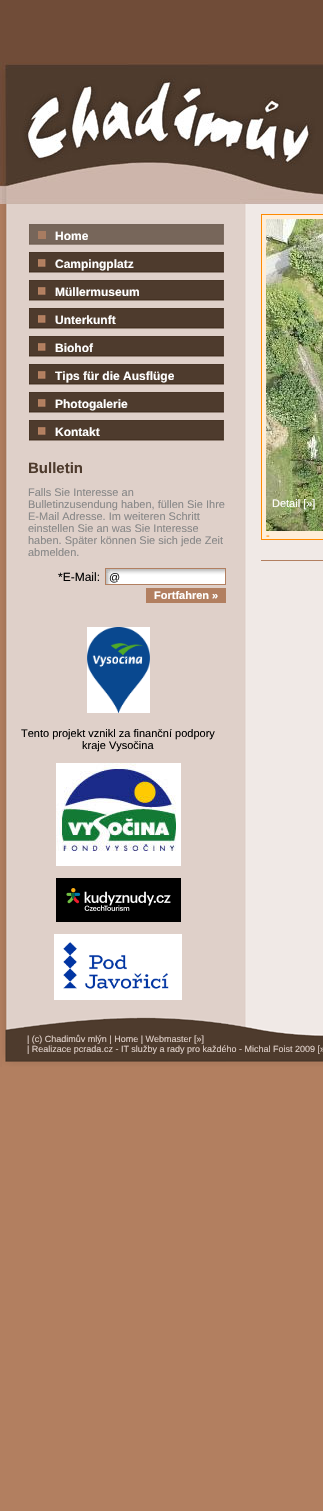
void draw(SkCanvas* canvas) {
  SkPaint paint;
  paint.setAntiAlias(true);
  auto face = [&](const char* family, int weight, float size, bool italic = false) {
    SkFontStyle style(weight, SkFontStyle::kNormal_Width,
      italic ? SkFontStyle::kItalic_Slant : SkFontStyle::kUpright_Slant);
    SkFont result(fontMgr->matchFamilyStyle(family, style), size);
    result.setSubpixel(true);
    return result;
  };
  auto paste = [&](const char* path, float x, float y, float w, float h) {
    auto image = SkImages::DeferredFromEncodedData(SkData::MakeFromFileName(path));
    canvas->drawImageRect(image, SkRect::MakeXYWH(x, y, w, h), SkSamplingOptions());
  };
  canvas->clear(0xffb27f60);
  paste("img/1.png", 0, 0, 323, 62);
  paste("img/2.png", 0, 62, 323, 142);
  paste("img/3.png", 0, 204, 323, 863);
  paste("img/4.png", 29, 224, 195, 21);
  paint.setColor(0xffa87c61);
  canvas->drawRect(SkRect::MakeXYWH(38, 231, 8, 8), paint);
  paste("img/5.png", 29, 252, 195, 21);
  paste("img/6.png", 38, 259, 8, 8);
  paste("img/5.png", 29, 280, 195, 21);
  paste("img/6.png", 38, 287, 8, 8);
  paste("img/5.png", 29, 308, 195, 21);
  paste("img/6.png", 38, 315, 8, 8);
  paste("img/5.png", 29, 336, 195, 21);
  paste("img/6.png", 38, 343, 8, 8);
  paste("img/5.png", 29, 364, 195, 21);
  paste("img/6.png", 38, 371, 8, 8);
  paste("img/5.png", 29, 392, 195, 21);
  paste("img/6.png", 38, 399, 8, 8);
  paste("img/5.png", 29, 420, 195, 21);
  paste("img/6.png", 38, 427, 8, 8);
  paste("img/7.png", 106, 569, 119, 15);
  paint.setStroke(true);
  paint.setStrokeWidth(1);
  paint.setColor(0xffb27f60);
  canvas->drawRect(SkRect::MakeXYWH(105.5f, 568.5f, 120, 16), paint);
  paint.setStroke(false);
  canvas->drawRect(SkRect::MakeXYWH(146, 588, 80, 15), paint);
  paste("img/8.png", 87, 627, 63, 86);
  paste("img/9.png", 56, 763, 125, 103);
  paint.setColor(0xff000000);
  canvas->drawRect(SkRect::MakeXYWH(56, 878, 125, 44), paint);
  paste("img/10.png", 66, 888, 105, 23);
  paste("img/11.png", 54, 934, 128, 66);
  paint.setColor(0xffffeed8);
  canvas->drawRect(SkRect::MakeXYWH(261.5f, 214.5f, 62, 325), paint);
  paint.setStroke(true);
  paint.setColor(0xffff8a00);
  canvas->drawRect(SkRect::MakeXYWH(261.5f, 214.5f, 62, 325), paint);
  paste("img/12.png", 266, 219, 57, 312);
  paint.setStroke(false);
  paint.setColor(0xffb27f60);
  canvas->drawRect(SkRect::MakeXYWH(261, 560, 62, 1), paint);
  paste("img/13.png", 2, 1017, 321, 50);
  auto f0 = face("Liberation Sans", 700, 12);
  paint.setColor(0xffffffff);
  {
    const struct { const char* s; float x, y; } items[] = {
      {"Home", 55, 240},
      {"Campingplatz", 55, 268},
      {"Müllermuseum", 55, 296},
      {"Unterkunft", 55, 324},
      {"Biohof", 55, 352},
      {"Tips für die Ausflüge", 55, 380},
      {"Photogalerie", 55, 408},
      {"Kontakt", 55, 436},
    };
    for (auto [s, x, y] : items) {
      canvas->drawString(s, x, y, f0, paint);
    }
  }
  auto f1 = face("Liberation Sans", 700, 15);
  paint.setColor(0xff4e3b2d);
  canvas->drawString("Bulletin", 28, 473, f1, paint);
  auto f2 = face("Liberation Sans", 400, 11);
  paint.setColor(0xff888888);
  {
    const struct { const char* s; float x, y; } items[] = {
      {"Falls Sie Interesse an", 28, 496},
      {"Bulletinzusendung haben, füllen Sie Ihre", 28, 508},
      {"E-Mail Adresse. Im weiteren Schritt", 28, 520},
      {"einstellen Sie an was Sie Interesse", 28, 532},
      {"haben. Später können Sie sich jede Zeit", 28, 544},
      {"abmelden.", 28, 556},
    };
    for (auto [s, x, y] : items) {
      canvas->drawString(s, x, y, f2, paint);
    }
  }
  auto f3 = face("Liberation Sans", 400, 12);
  paint.setColor(0xff000000);
  canvas->drawString("*E-Mail:", 58, 581, f3, paint);
  paint.setColor(0xff111111);
  canvas->drawString("@", 109, 581, f2, paint);
  auto f4 = face("Liberation Sans", 700, 11);
  paint.setColor(0xffffffff);
  canvas->drawString("Fortfahren »", 154, 599, f4, paint);
  paint.setColor(0xff000000);
  canvas->drawString("Tento projekt vznikl za finanční podpory", 21, 737, f2, paint);
  canvas->drawString("kraje Vysočina", 82, 749, f2, paint);
  paint.setColor(0xffffffff);
  canvas->drawString("Detail [»]", 272, 507, f2, paint);
  paint.setColor(0xffff8a00);
  canvas->drawString("-", 266, 539, f2, paint);
  auto f5 = face("Liberation Sans", 400, 9);
  paint.setColor(0xffdfd0c9);
  canvas->drawString("| (c) Chadimův mlýn | Home | Webmaster [»]", 27, 1042, f5, paint);
  canvas->drawString("| Realizace pcrada.cz - IT služby a rady pro každého - Michal Foist 2009 [»", 27, 1052, f5, paint);
}
